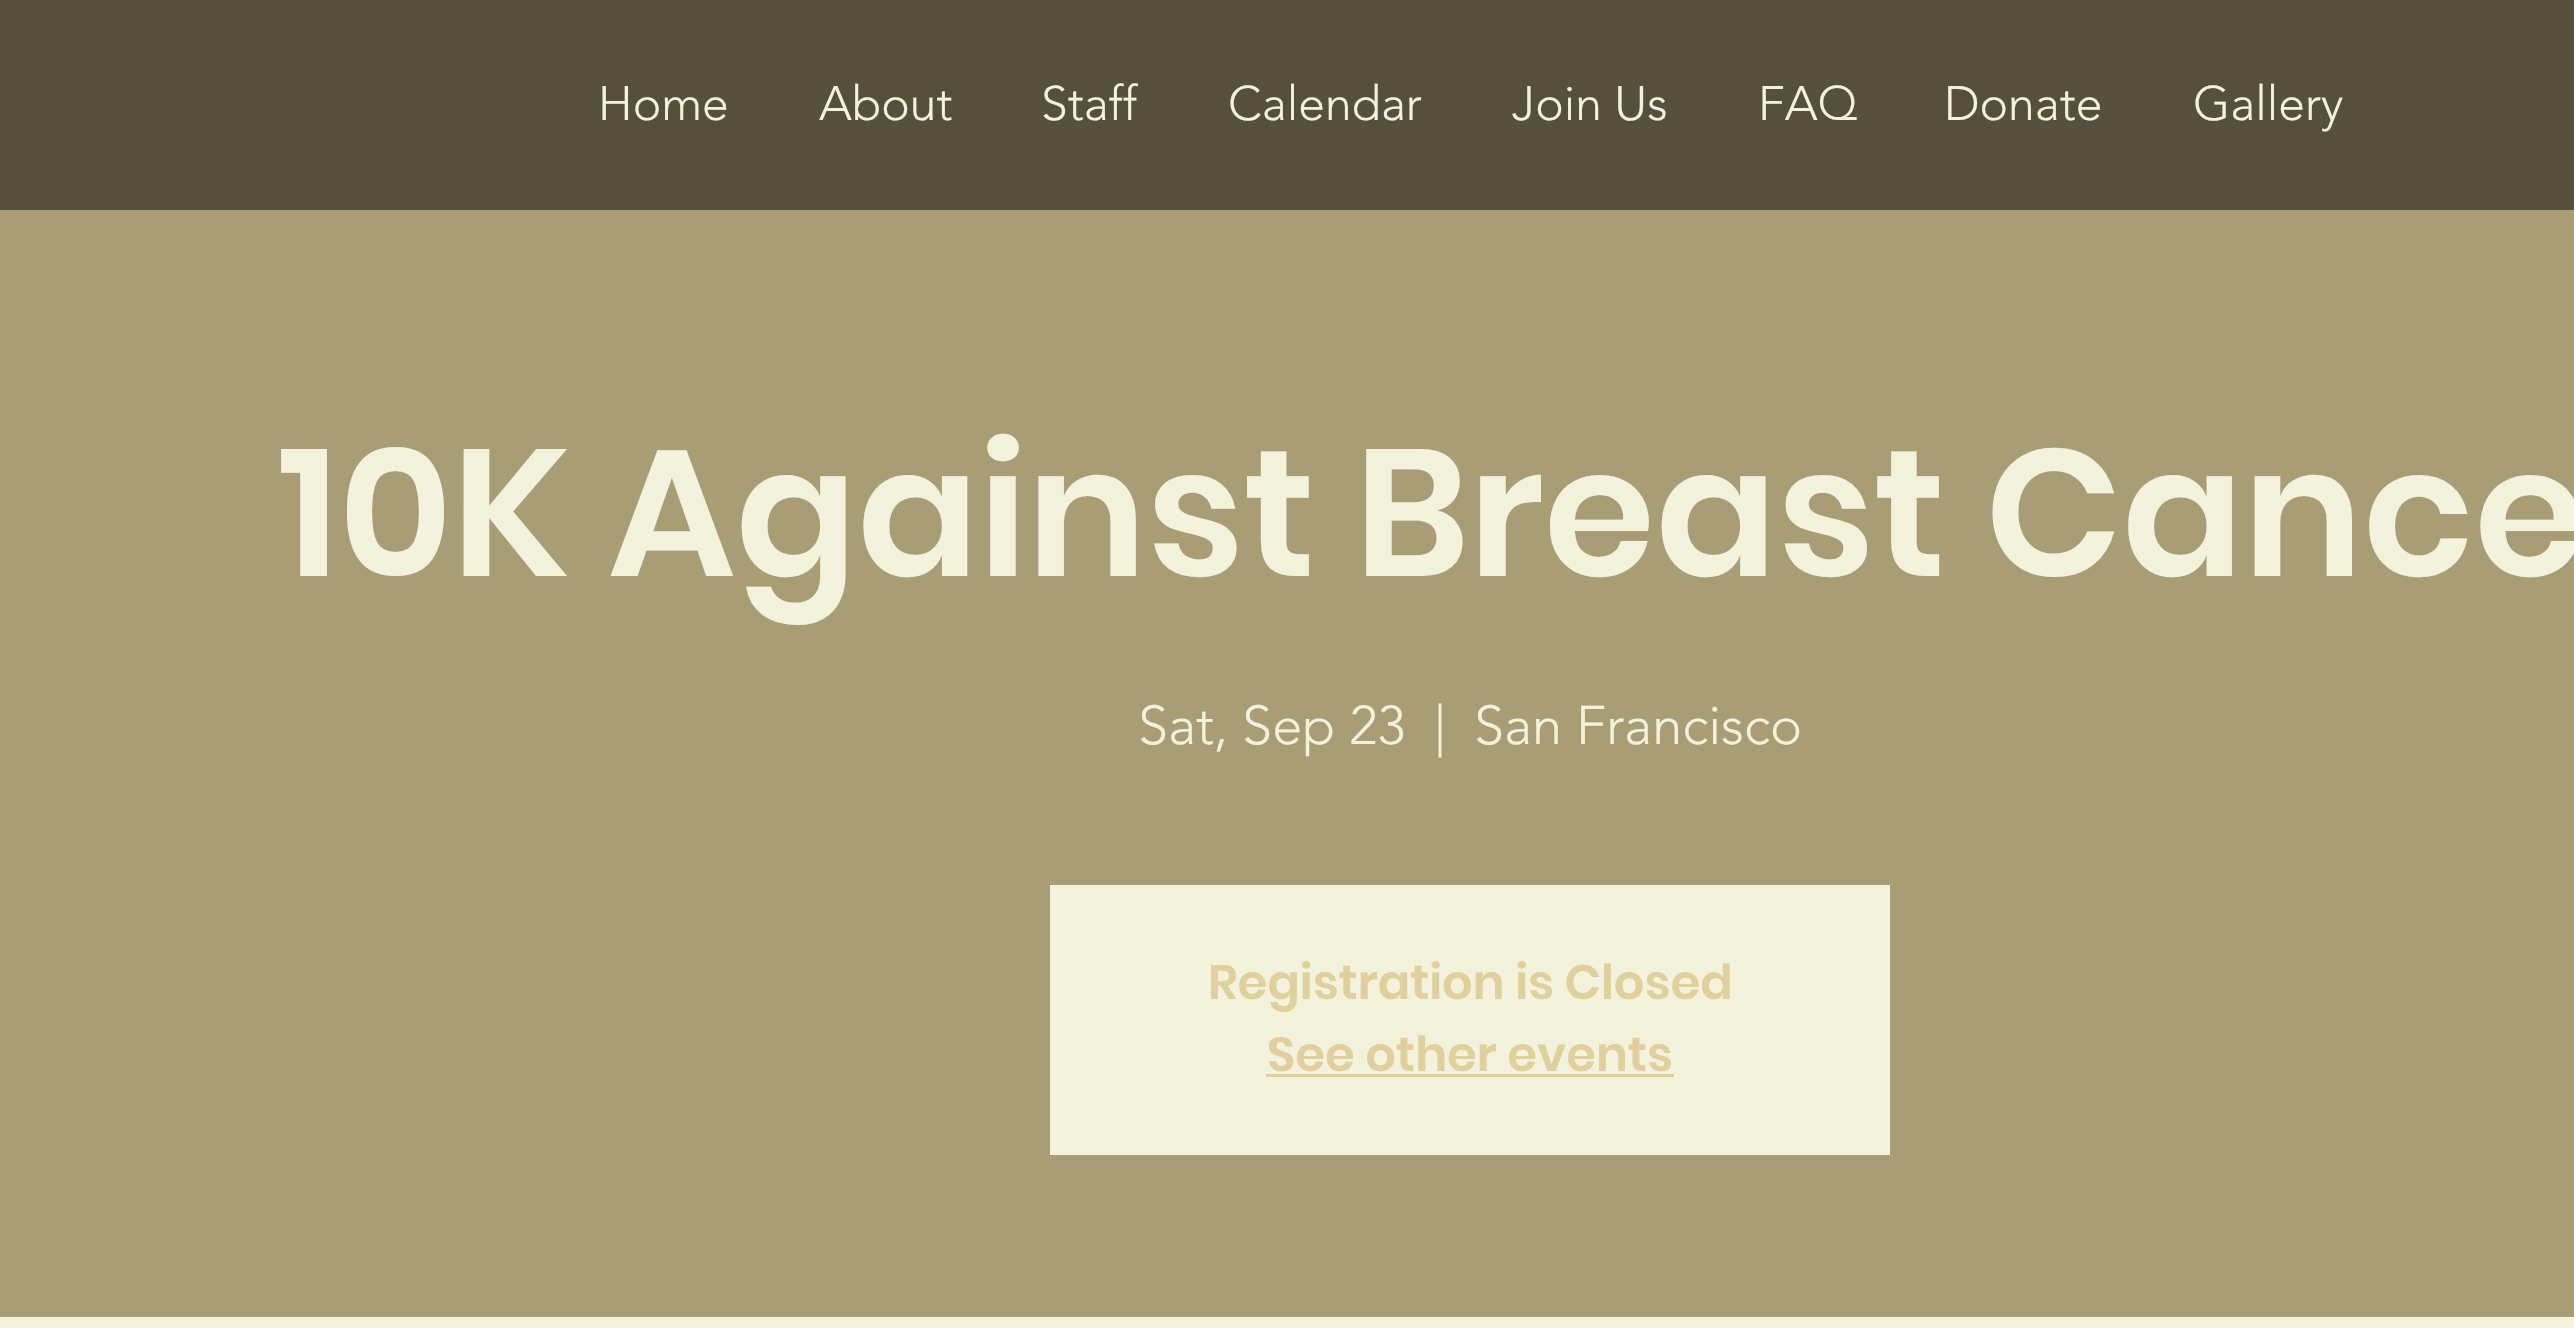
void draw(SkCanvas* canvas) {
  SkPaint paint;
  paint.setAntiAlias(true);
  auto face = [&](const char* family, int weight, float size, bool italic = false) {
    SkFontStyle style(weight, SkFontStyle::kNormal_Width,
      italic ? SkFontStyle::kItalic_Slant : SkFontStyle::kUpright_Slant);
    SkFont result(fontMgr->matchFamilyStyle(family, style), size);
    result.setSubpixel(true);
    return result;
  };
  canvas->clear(0xfff3f2dc);
  {
    const struct { float x, y, w, h; SkColor color; } items[] = {
      {0, 0, 2574, 210, 0xff554f3c},
      {0, 210, 2574, 1107, 0xffa89d75},
      {1050, 885, 840, 270, 0xfff3f2dc},
      {1266, 1074, 408, 3, 0xffe0d19c},
    };
    for (auto [x, y, w, h, color] : items) {
      paint.setColor(color);
      canvas->drawRect(SkRect::MakeXYWH(x, y, w, h), paint);
    }
  }
  auto f0 = face("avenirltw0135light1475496", 300, 48);
  paint.setColor(0xfff3f2dc);
  {
    const struct { const char* s; float x, y; } items[] = {
      {"Home", 598, 120},
      {"About", 819, 120},
      {"Staff", 1041, 120},
      {"Calendar", 1228, 120},
      {"Join Us", 1512, 120},
      {"FAQ", 1758, 120},
      {"Donate", 1944, 120},
      {"Gallery", 2193, 120},
    };
    for (auto [s, x, y] : items) {
      canvas->drawString(s, x, y, f0, paint);
    }
  }
  auto f1 = face("Poppins", 600, 180);
  canvas->drawString("10K Against Breast Cance", 279, 576, f1, paint);
  auto f2 = face("avenirltw0135light1475496", 300, 54);
  {
    const struct { const char* s; float x, y; } items[] = {
      {"Sat, Sep 23", 1138, 744},
      {"|", 1434, 744},
      {"San Francisco", 1474, 744},
    };
    for (auto [s, x, y] : items) {
      canvas->drawString(s, x, y, f2, paint);
    }
  }
  auto f3 = face("Poppins", 600, 48);
  paint.setColor(0xffe0d19c);
  canvas->drawString("Registration is Closed", 1208, 999, f3, paint);
  canvas->drawString("See other events", 1267, 1071, f3, paint);
}
